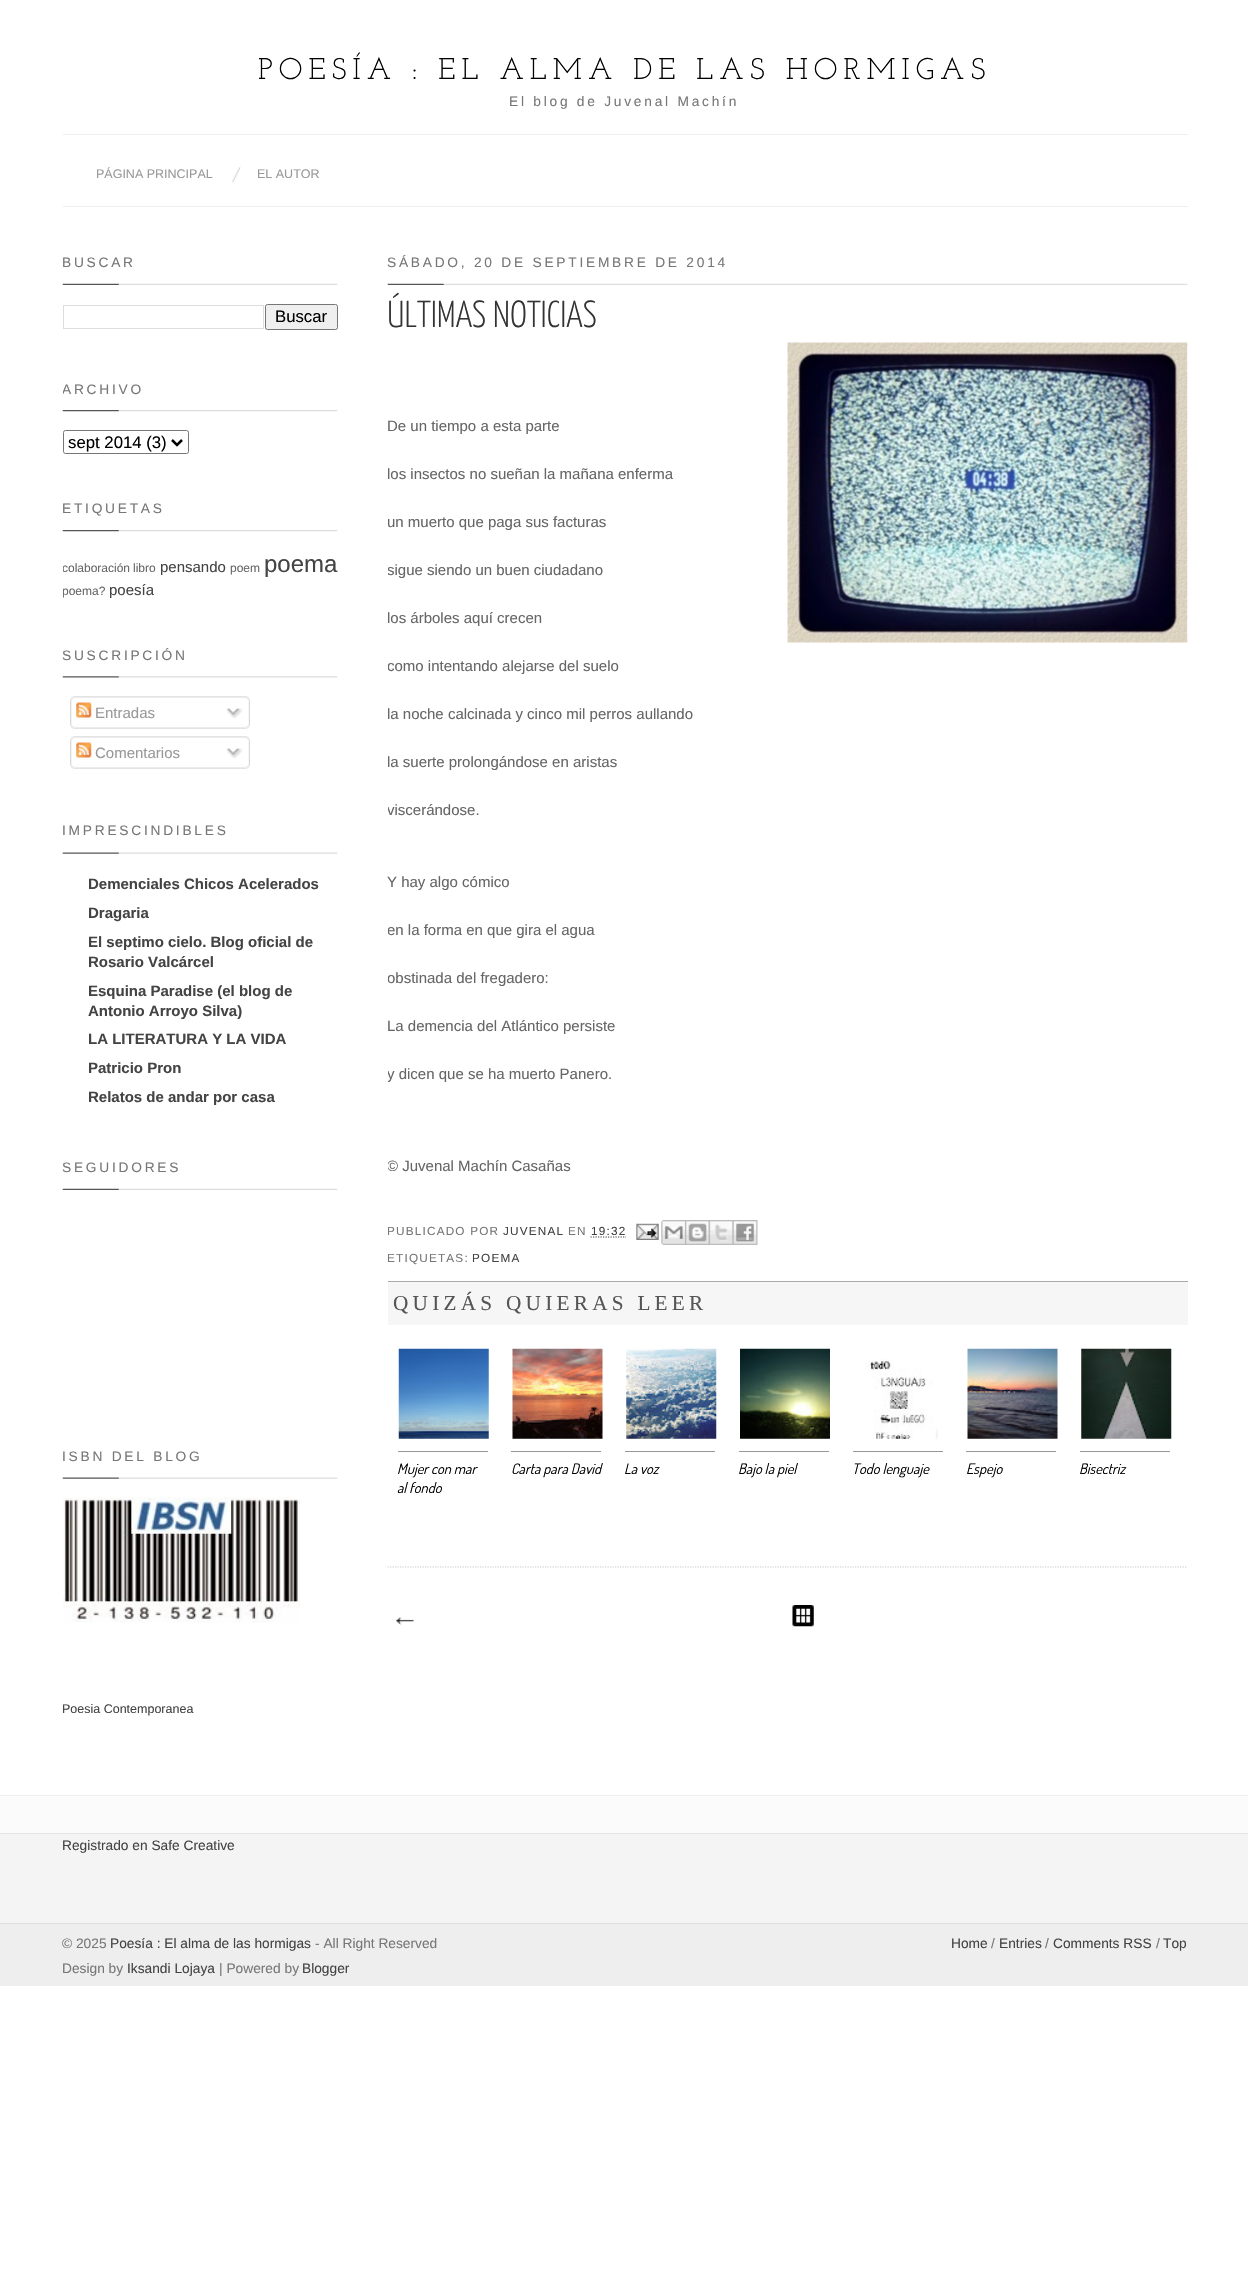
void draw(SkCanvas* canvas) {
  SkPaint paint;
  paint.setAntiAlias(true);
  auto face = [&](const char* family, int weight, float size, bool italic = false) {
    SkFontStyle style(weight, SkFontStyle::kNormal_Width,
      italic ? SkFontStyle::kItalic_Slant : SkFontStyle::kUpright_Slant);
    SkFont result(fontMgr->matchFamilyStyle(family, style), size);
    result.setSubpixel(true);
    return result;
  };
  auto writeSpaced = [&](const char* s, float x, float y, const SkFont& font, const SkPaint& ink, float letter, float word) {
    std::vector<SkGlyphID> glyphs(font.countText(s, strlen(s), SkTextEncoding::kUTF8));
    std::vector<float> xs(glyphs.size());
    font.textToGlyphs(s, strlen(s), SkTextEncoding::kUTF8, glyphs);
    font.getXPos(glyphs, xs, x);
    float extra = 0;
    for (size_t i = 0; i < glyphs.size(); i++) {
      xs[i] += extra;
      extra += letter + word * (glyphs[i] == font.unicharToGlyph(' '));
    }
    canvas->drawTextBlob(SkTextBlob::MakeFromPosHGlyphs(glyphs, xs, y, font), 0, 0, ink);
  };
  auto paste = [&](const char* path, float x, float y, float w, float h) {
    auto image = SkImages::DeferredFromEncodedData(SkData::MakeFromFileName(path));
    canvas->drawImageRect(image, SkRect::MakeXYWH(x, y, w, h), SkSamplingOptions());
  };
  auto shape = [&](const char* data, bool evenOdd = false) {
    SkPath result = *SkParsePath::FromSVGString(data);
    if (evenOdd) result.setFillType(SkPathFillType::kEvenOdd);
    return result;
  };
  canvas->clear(0xffffffff);
  paint.setColor(0xffeeeeee);
  canvas->drawRect(SkRect::MakeXYWH(63, 134, 1125, 1), paint);
  canvas->drawRect(SkRect::MakeXYWH(63, 206, 1125, 1), paint);
  paste("img/1.png", 231, 166, 10, 17);
  paste("img/2.png", 62, 283, 276, 2);
  paint.setStroke(true);
  paint.setStrokeWidth(1);
  paint.setColor(0xffdddddd);
  canvas->drawRect(SkRect::MakeXYWH(63.5f, 305.5f, 200, 23), paint);
  paint.setStroke(false);
  paint.setColor(0xffefefef);
  canvas->drawRoundRect(SkRect::MakeXYWH(265.5f, 304.5f, 72, 25), 2, 2, paint);
  paint.setStroke(true);
  paint.setColor(0xff767676);
  canvas->drawRoundRect(SkRect::MakeXYWH(265.5f, 304.5f, 72, 25), 2, 2, paint);
  paste("img/3.png", 62, 410, 276, 2);
  canvas->drawRoundRect(SkRect::MakeXYWH(63.5f, 430.5f, 125, 23), 2, 2, paint);
  paint.setStrokeWidth(2.5f);
  paint.setColor(0xff000000);
  canvas->drawPath(shape("M172 440L177 445L182 440"), paint);
  paste("img/3.png", 62, 530, 276, 2);
  paste("img/4.png", 62, 676, 276, 2);
  paste("img/5.png", 70, 696, 180, 29);
  paste("img/6.png", 76, 702, 16, 16);
  paste("img/7.png", 226, 708, 17, 11);
  paste("img/8.png", 70, 725, 180, 4);
  paste("img/5.png", 70, 736, 180, 29);
  paste("img/6.png", 76, 742, 16, 16);
  paste("img/7.png", 226, 748, 17, 11);
  paste("img/8.png", 70, 765, 180, 4);
  paste("img/9.png", 62, 852, 276, 2);
  paste("img/2.png", 62, 1188, 276, 2);
  paste("img/9.png", 62, 1477, 276, 2);
  paste("img/10.png", 63, 1497, 237, 126);
  paste("img/11.png", 387, 283, 801, 2);
  paint.setStrokeWidth(1.2f);
  paint.setColor(0xffcccccc);
  paint.setPathEffect(SkDashPathEffect::Make({{1.25f, 1.25f}}, 0));
  canvas->drawPath(shape("M387.5 1567H1187.5"), paint);
  paint.setPathEffect(nullptr);
  paste("img/12.png", 787, 342, 401, 301);
  paint.setColor(0xff444444);
  paint.setPathEffect(SkDashPathEffect::Make({{1.25f, 1.25f}}, 0));
  canvas->drawPath(shape("M590.5 1237H626"), paint);
  paint.setPathEffect(nullptr);
  paste("img/13.png", 636, 1223, 23, 17);
  paste("img/14.png", 661, 1220, 24, 25);
  paste("img/15.png", 685, 1220, 24, 25);
  paste("img/16.png", 708, 1220, 25, 25);
  paste("img/17.png", 732, 1220, 26, 25);
  paint.setStroke(false);
  paint.setColor(0xfff6f6f6);
  canvas->drawRect(SkRect::MakeXYWH(388, 1282, 800, 43), paint);
  paint.setColor(0xffaaaaaa);
  canvas->drawRect(SkRect::MakeXYWH(388, 1281, 800, 1), paint);
  paste("img/18.png", 398, 1348, 91, 91);
  paint.setColor(0xff999999);
  canvas->drawRect(SkRect::MakeXYWH(398, 1451, 90, 1), paint);
  paste("img/19.png", 512, 1348, 91, 91);
  canvas->drawRect(SkRect::MakeXYWH(511, 1451, 90, 1), paint);
  paste("img/20.png", 626, 1348, 91, 91);
  canvas->drawRect(SkRect::MakeXYWH(625, 1451, 90, 1), paint);
  paste("img/21.png", 740, 1348, 90, 91);
  canvas->drawRect(SkRect::MakeXYWH(739, 1451, 90, 1), paint);
  paste("img/22.png", 865, 1359, 73, 80);
  canvas->drawRect(SkRect::MakeXYWH(853, 1451, 90, 1), paint);
  paste("img/23.png", 967, 1348, 91, 91);
  canvas->drawRect(SkRect::MakeXYWH(966, 1451, 90, 1), paint);
  paste("img/24.png", 1081, 1348, 91, 91);
  canvas->drawRect(SkRect::MakeXYWH(1080, 1451, 90, 1), paint);
  paste("img/25.png", 396, 1617, 18, 8);
  paste("img/26.png", 792, 1605, 22, 22);
  {
    const struct { float x, y, w, h; SkColor color; } items[] = {
      {0, 1796, 1248, 37, 0xfffbfbfb},
      {0, 1795, 1248, 1, 0xffeeeeee},
      {0, 1834, 1248, 89, 0xfff4f4f4},
      {0, 1833, 1248, 1, 0xffe4e4e4},
      {0, 1924, 1248, 62, 0xffeeeeee},
      {0, 1923, 1248, 1, 0xffdddddd},
    };
    for (auto [x, y, w, h, color] : items) {
      paint.setColor(color);
      canvas->drawRect(SkRect::MakeXYWH(x, y, w, h), paint);
    }
  }
  auto f0 = face("Josefin Slab", 100, 30);
  paint.setColor(0xff000000);
  writeSpaced("POESÍA : EL ALMA DE LAS HORMIGAS", 258, 79, f0, paint, 6, 0);
  auto f1 = face("Liberation Sans", 400, 13.75f);
  paint.setColor(0xff777777);
  writeSpaced("El blog de Juvenal Machín", 509, 106, f1, paint, 2.75f, 0);
  auto f2 = face("Liberation Sans", 400, 12.5f);
  paint.setColor(0xff999999);
  canvas->drawString("PÁGINA PRINCIPAL", 96, 178, f2, paint);
  canvas->drawString("EL AUTOR", 257, 178, f2, paint);
  paint.setColor(0xff777777);
  writeSpaced("BUSCAR", 62, 267, f1, paint, 2.75f, 0);
  auto f3 = face("Liberation Sans", 400, 16.75f);
  paint.setColor(0xff000000);
  canvas->drawString("Buscar", 275, 322, f3, paint);
  canvas->save();
  canvas->clipRect(SkRect::MakeXYWH(63, 233, 275, 1532));
  paint.setColor(0xff777777);
  writeSpaced("ARCHIVO", 62, 394, f1, paint, 2.75f, 0);
  canvas->restore();
  paint.setColor(0xff000000);
  canvas->drawString("sept 2014 (3)", 68, 448, f3, paint);
  paint.setColor(0xff777777);
  writeSpaced("ETIQUETAS", 62, 513, f1, paint, 2.75f, 0);
  canvas->save();
  canvas->clipRect(SkRect::MakeXYWH(63, 233, 275, 1532));
  auto f4 = face("Liberation Sans", 400, 12);
  paint.setColor(0xff666666);
  canvas->drawString("colaboración", 62, 572, f4, paint);
  canvas->restore();
  canvas->drawString("libro", 133, 572, f4, paint);
  auto f5 = face("Liberation Sans", 400, 15);
  paint.setColor(0xff444444);
  canvas->drawString("pensando", 160, 572, f5, paint);
  paint.setColor(0xff666666);
  canvas->drawString("poem", 230, 572, f4, paint);
  auto f6 = face("Liberation Sans", 400, 24);
  paint.setColor(0xff444444);
  canvas->drawString("poema", 264, 572, f6, paint);
  canvas->save();
  canvas->clipRect(SkRect::MakeXYWH(63, 233, 275, 1532));
  paint.setColor(0xff666666);
  canvas->drawString("poema?", 62, 595, f4, paint);
  canvas->restore();
  paint.setColor(0xff444444);
  canvas->drawString("poesía", 109, 595, f5, paint);
  paint.setColor(0xff777777);
  writeSpaced("SUSCRIPCIÓN", 62, 660, f1, paint, 2.75f, 0);
  paint.setColor(0xff999999);
  canvas->drawString("Entradas", 95, 718, f5, paint);
  canvas->drawString("Comentarios", 95, 758, f5, paint);
  paint.setColor(0xff777777);
  writeSpaced("IMPRESCINDIBLES", 62, 835, f1, paint, 2.75f, 0);
  auto f7 = face("Liberation Sans", 700, 15);
  paint.setColor(0xff444444);
  {
    const struct { const char* s; float x, y; } items[] = {
      {"Demenciales Chicos Acelerados", 88, 889},
      {"Dragaria", 88, 918},
      {"El septimo cielo. Blog oficial de", 88, 947},
      {"Rosario Valcárcel", 88, 967},
      {"Esquina Paradise (el blog de", 88, 996},
      {"Antonio Arroyo Silva)", 88, 1016},
      {"LA LITERATURA Y LA VIDA", 88, 1044},
      {"Patricio Pron", 88, 1073},
      {"Relatos de andar por casa", 88, 1102},
    };
    for (auto [s, x, y] : items) {
      canvas->drawString(s, x, y, f7, paint);
    }
  }
  paint.setColor(0xff777777);
  writeSpaced("SEGUIDORES", 62, 1172, f1, paint, 2.75f, 0);
  writeSpaced("ISBN DEL BLOG", 62, 1461, f1, paint, 2.75f, 0);
  canvas->save();
  canvas->clipRect(SkRect::MakeXYWH(63, 233, 275, 1532));
  paint.setColor(0xff444444);
  canvas->drawString("Poesia Contemporanea", 62, 1713, f2, paint);
  canvas->restore();
  paint.setColor(0xff777777);
  writeSpaced("SÁBADO, 20 DE SEPTIEMBRE DE 2014", 387, 267, f1, paint, 2.75f, 0);
  auto f8 = face("Yanone Kaffeesatz", 200, 37.5f);
  paint.setColor(0xff333333);
  canvas->drawString("ÚLTIMAS NOTICIAS", 387, 327, f8, paint);
  paint.setColor(0xff666666);
  canvas->drawString("De un tiempo a esta parte", 387, 431, f5, paint);
  canvas->save();
  canvas->clipRect(SkRect::MakeXYWH(388, 233, 800, 1465));
  {
    const struct { const char* s; float x, y; } items[] = {
      {"los insectos no sueñan la mañana enferma", 387, 479},
      {"un muerto que paga sus facturas", 387, 527},
      {"sigue siendo un buen ciudadano", 387, 575},
      {"los árboles aquí crecen", 387, 623},
      {"como intentando alejarse del suelo", 387, 671},
      {"la noche calcinada y cinco mil perros aullando", 387, 719},
      {"la suerte prolongándose en aristas", 387, 767},
      {"viscerándose.", 387, 815},
    };
    for (auto [s, x, y] : items) {
      canvas->drawString(s, x, y, f5, paint);
    }
  }
  canvas->restore();
  canvas->drawString("Y hay algo cómico", 387, 887, f5, paint);
  canvas->save();
  canvas->clipRect(SkRect::MakeXYWH(388, 233, 800, 1465));
  canvas->drawString("en la forma en que gira el agua", 387, 935, f5, paint);
  canvas->drawString("obstinada del fregadero:", 387, 983, f5, paint);
  canvas->restore();
  canvas->drawString("La demencia del Atlántico persiste", 387, 1031, f5, paint);
  canvas->save();
  canvas->clipRect(SkRect::MakeXYWH(388, 233, 800, 1465));
  canvas->drawString("y dicen que se ha muerto Panero.", 387, 1079, f5, paint);
  canvas->drawString("© Juvenal Machín Casañas", 387, 1171, f5, paint);
  auto f9 = face("Liberation Sans", 400, 11.75f);
  paint.setColor(0xff777777);
  writeSpaced("PUBLICADO POR", 387, 1235, f9, paint, 1.2f, 0);
  canvas->restore();
  paint.setColor(0xff444444);
  writeSpaced("JUVENAL", 503, 1235, f9, paint, 1.2f, 0);
  paint.setColor(0xff777777);
  writeSpaced("EN", 568, 1235, f9, paint, 1.2f, 0);
  paint.setColor(0xff444444);
  writeSpaced("19:32", 591, 1235, f9, paint, 1.2f, 0);
  canvas->save();
  canvas->clipRect(SkRect::MakeXYWH(388, 233, 800, 1465));
  paint.setColor(0xff777777);
  writeSpaced("ETIQUETAS:", 387, 1262, f9, paint, 1.2f, 0);
  canvas->restore();
  paint.setColor(0xff444444);
  writeSpaced("POEMA", 472, 1262, f9, paint, 1.2f, 0);
  auto f10 = face("Liberation Serif", 400, 21.25f);
  paint.setColor(0xff555555);
  writeSpaced("QUIZÁS QUIERAS LEER", 393, 1310, f10, paint, 4.25f, 0);
  auto f11 = face("Dosis", 400, 14.5f, true);
  paint.setColor(0xff000000);
  {
    const struct { const char* s; float x, y; } items[] = {
      {"Mujer con mar", 397, 1474},
      {"al fondo", 397, 1493},
      {"Carta para David", 511, 1474},
      {"La voz", 624, 1474},
      {"Bajo la piel", 738, 1474},
      {"Todo lenguaje", 852, 1474},
      {"Espejo", 966, 1474},
      {"Bisectriz", 1079, 1474},
    };
    for (auto [s, x, y] : items) {
      canvas->drawString(s, x, y, f11, paint);
    }
  }
  paint.setColor(0xff444444);
  canvas->drawString("Registrado en Safe Creative", 62, 1850, f1, paint);
  paint.setColor(0xff777777);
  canvas->drawString("© 2025", 62, 1948, f1, paint);
  paint.setColor(0xff444444);
  canvas->drawString("Poesía : El alma de las hormigas", 110, 1948, f1, paint);
  paint.setColor(0xff777777);
  canvas->drawString("- All Right Reserved", 315, 1948, f1, paint);
  canvas->drawString("Design by", 62, 1973, f1, paint);
  paint.setColor(0xff444444);
  canvas->drawString("Iksandi Lojaya", 127, 1973, f1, paint);
  paint.setColor(0xff777777);
  canvas->drawString("| Powered by", 219, 1973, f1, paint);
  paint.setColor(0xff444444);
  canvas->drawString("Blogger", 302, 1973, f1, paint);
  canvas->drawString("Home", 951, 1948, f1, paint);
  paint.setColor(0xff777777);
  canvas->drawString("/", 991, 1948, f1, paint);
  paint.setColor(0xff444444);
  canvas->drawString("Entries", 999, 1948, f1, paint);
  paint.setColor(0xff777777);
  canvas->drawString("/", 1045, 1948, f1, paint);
  paint.setColor(0xff444444);
  canvas->drawString("Comments RSS", 1053, 1948, f1, paint);
  paint.setColor(0xff777777);
  canvas->drawString("/", 1156, 1948, f1, paint);
  paint.setColor(0xff444444);
  canvas->drawString("Top", 1163, 1948, f1, paint);
}
